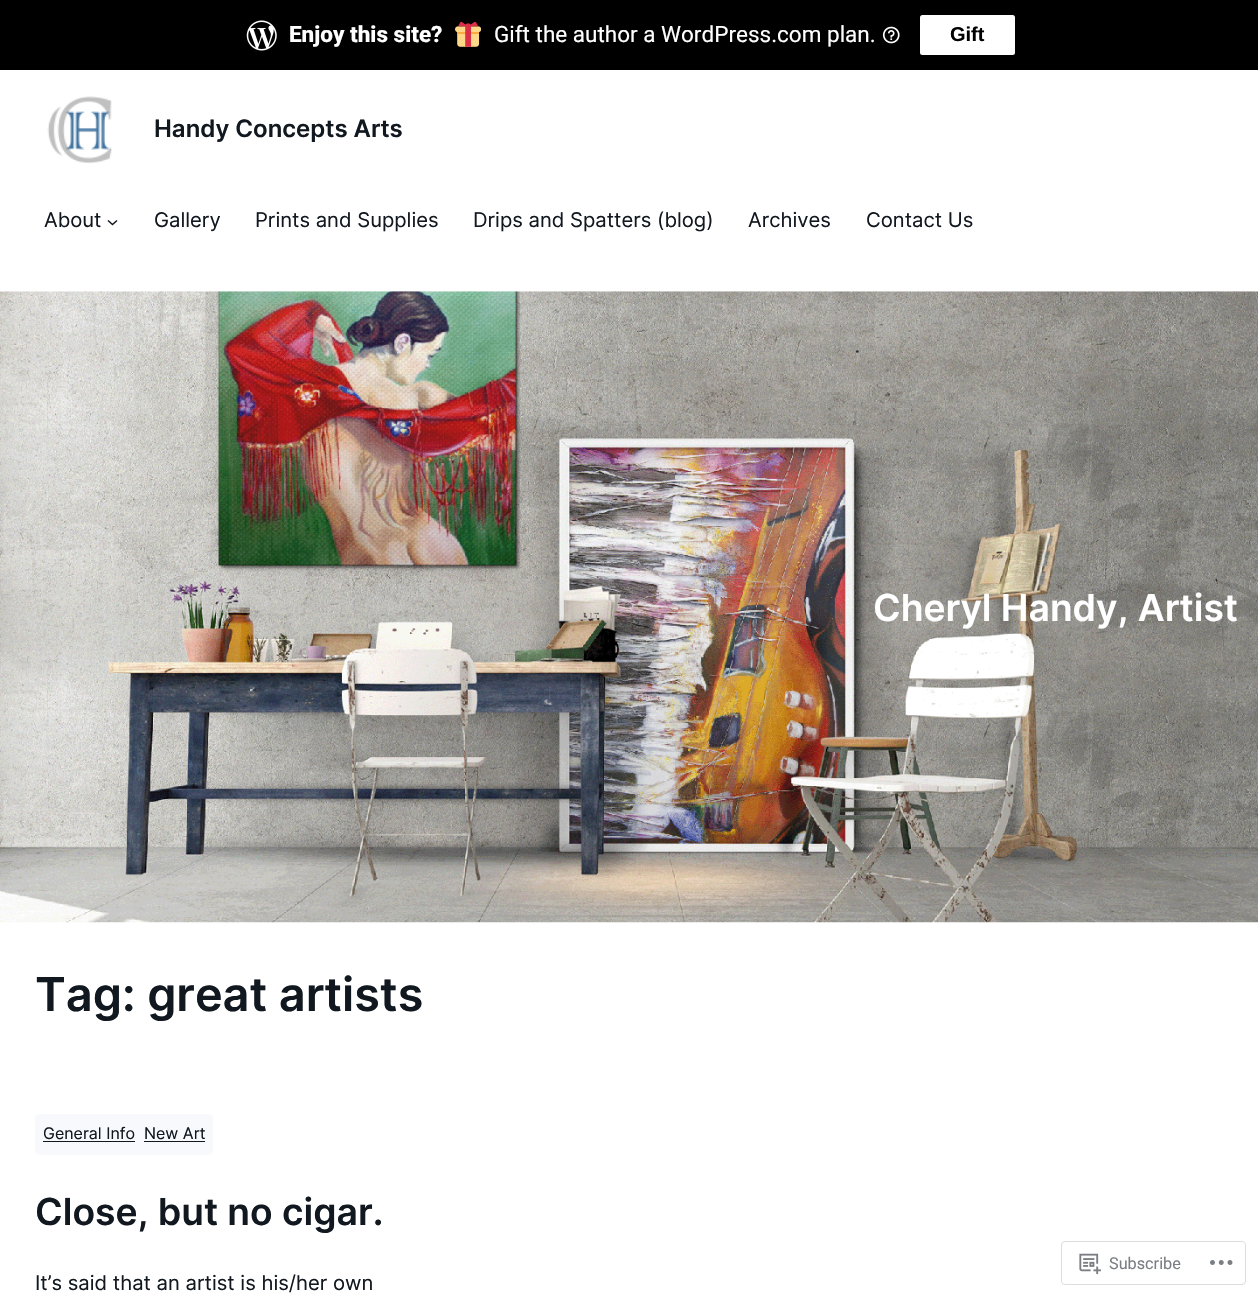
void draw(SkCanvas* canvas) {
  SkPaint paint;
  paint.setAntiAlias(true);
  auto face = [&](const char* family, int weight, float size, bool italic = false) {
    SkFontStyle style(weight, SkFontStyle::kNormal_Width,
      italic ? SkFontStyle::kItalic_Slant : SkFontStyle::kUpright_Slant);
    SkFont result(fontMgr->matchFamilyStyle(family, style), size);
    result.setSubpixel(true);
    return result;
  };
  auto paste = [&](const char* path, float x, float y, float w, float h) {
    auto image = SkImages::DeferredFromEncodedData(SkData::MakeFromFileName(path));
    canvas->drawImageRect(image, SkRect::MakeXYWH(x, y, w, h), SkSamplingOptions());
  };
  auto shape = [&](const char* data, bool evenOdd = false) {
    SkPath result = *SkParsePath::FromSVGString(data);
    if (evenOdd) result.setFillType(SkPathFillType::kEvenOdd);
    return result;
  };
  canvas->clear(0xffffffff);
  paint.setColor(0xff000000);
  canvas->drawRect(SkRect::MakeXYWH(0, 0, 1258, 70), paint);
  paste("img/1.png", 246, 20, 31, 31);
  paste("img/2.png", 455, 21, 26, 26);
  paste("img/3.png", 882, 26, 18, 18);
  paint.setColor(0xffffffff);
  canvas->drawRoundRect(SkRect::MakeXYWH(920, 15, 95, 40), 2.5f, 2.5f, paint);
  paste("img/4.png", 47, 96, 65, 68);
  paint.setStroke(true);
  paint.setStrokeWidth(1.5f);
  paint.setColor(0xff11181f);
  canvas->drawPath(shape("M108 220.5L112.5 224.5L117 220.5"), paint);
  paste("img/5.png", 0, 291, 1258, 632);
  paint.setStroke(false);
  paint.setColor(0xfff7f9fd);
  canvas->drawRoundRect(SkRect::MakeXYWH(35, 1114, 178, 41), 5, 5, paint);
  paint.setColor(0xff11181f);
  canvas->drawRect(SkRect::MakeXYWH(43, 1141, 92, 1), paint);
  canvas->drawRect(SkRect::MakeXYWH(144, 1141, 61, 1), paint);
  paint.setStroke(true);
  paint.setStrokeWidth(1);
  paint.setColor(0xffdddddf);
  canvas->drawRoundRect(SkRect::MakeXYWH(1061.5f, 1241.5f, 184, 43), 3.5f, 3.5f, paint);
  paste("img/6.png", 1079, 1253, 22, 22);
  paste("img/7.png", 1210, 1260, 23, 5);
  auto f0 = face("Roboto", 800, 22.5f);
  paint.setStroke(false);
  paint.setColor(0xffffffff);
  canvas->drawString("Enjoy this site?", 289, 42, f0, paint);
  auto f1 = face("Roboto", 400, 22.5f);
  canvas->drawString("Gift the author a WordPress.com plan.", 494, 42, f1, paint);
  auto f2 = face("Liberation Sans", 700, 20);
  paint.setColor(0xff000000);
  canvas->drawString("Gift", 950, 41, f2, paint);
  auto f3 = face("Inter", 600, 24);
  paint.setColor(0xff11181f);
  canvas->drawString("Handy Concepts Arts", 154, 137, f3, paint);
  auto f4 = face("Inter", 400, 20.25f);
  {
    const struct { const char* s; float x, y; } items[] = {
      {"About", 44, 227},
      {"Gallery", 154, 227},
      {"Prints and Supplies", 255, 227},
      {"Drips and Spatters (blog)", 473, 227},
      {"Archives", 748, 227},
      {"Contact Us", 866, 227},
    };
    for (auto [s, x, y] : items) {
      canvas->drawString(s, x, y, f4, paint);
    }
  }
  auto f5 = face("Inter", 600, 37.25f);
  paint.setColor(0xffffffff);
  canvas->drawString("Cheryl Handy, Artist", 873, 621, f5, paint);
  auto f6 = face("Inter", 600, 46.75f);
  paint.setColor(0xff11181f);
  canvas->drawString("Tag: great artists", 35, 1011, f6, paint);
  auto f7 = face("Inter", 400, 16);
  canvas->drawString("General Info", 43, 1139, f7, paint);
  canvas->drawString("New Art", 144, 1139, f7, paint);
  canvas->drawString("Close, but no cigar.", 35, 1225, f5, paint);
  canvas->drawString("It’s said that an artist is his/her own", 35, 1290, f4, paint);
  auto f8 = face("Roboto", 400, 16.25f);
  paint.setColor(0xff7b7f85);
  canvas->drawString("Subscribe", 1109, 1269, f8, paint);
}
